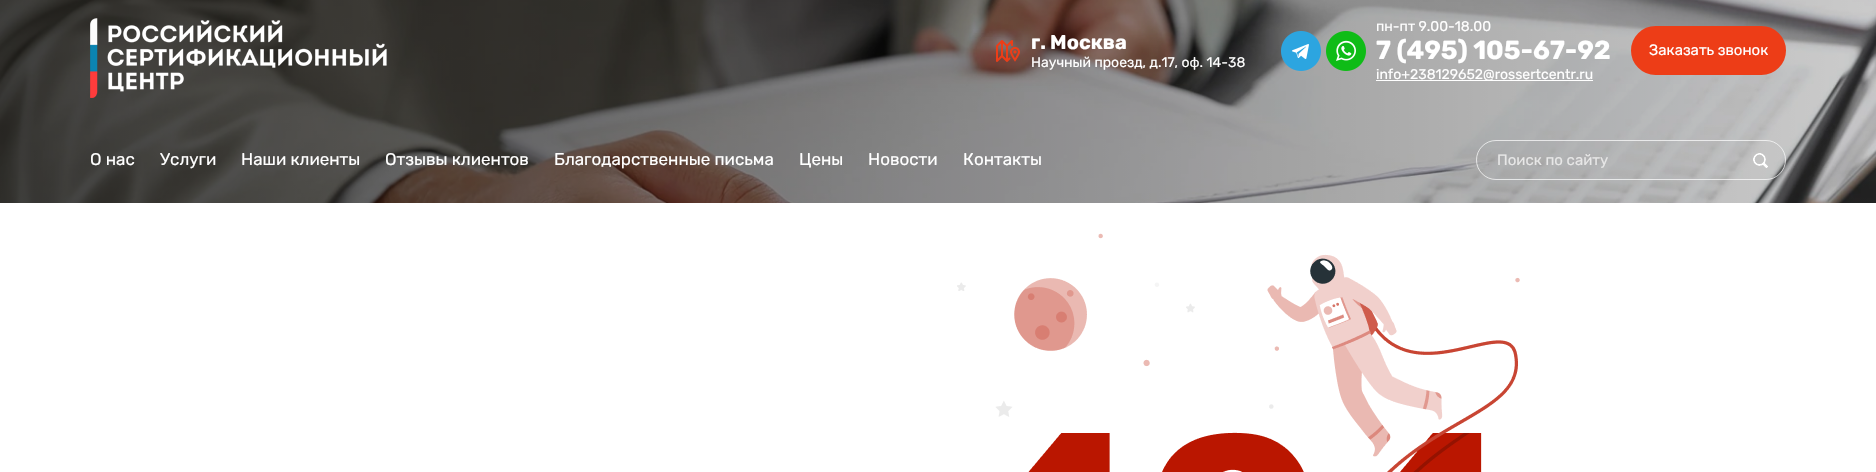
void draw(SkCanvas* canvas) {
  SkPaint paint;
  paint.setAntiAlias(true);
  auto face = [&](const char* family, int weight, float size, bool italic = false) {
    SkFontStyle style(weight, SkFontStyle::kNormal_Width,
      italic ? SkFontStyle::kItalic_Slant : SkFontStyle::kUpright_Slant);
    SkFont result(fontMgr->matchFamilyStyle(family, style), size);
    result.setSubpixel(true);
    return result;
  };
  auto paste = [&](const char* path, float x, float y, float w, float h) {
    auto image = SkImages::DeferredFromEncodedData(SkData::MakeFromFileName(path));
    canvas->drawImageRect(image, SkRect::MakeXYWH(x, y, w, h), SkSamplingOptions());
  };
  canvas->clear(0xffffffff);
  paste("img/1.png", 0, 0, 1876, 203);
  paste("img/2.png", 90, 18, 297, 80);
  paste("img/3.png", 996, 40, 24, 22);
  paste("img/4.png", 1281, 31, 40, 40);
  paste("img/5.png", 1326, 31, 40, 40);
  paint.setColor(0xffffffff);
  canvas->drawRect(SkRect::MakeXYWH(1376, 80, 217, 1), paint);
  paint.setColor(0xffed3d17);
  canvas->drawRoundRect(SkRect::MakeXYWH(1632, 27, 153, 47), 23.5f, 23.5f, paint);
  paint.setStroke(true);
  paint.setStrokeWidth(2);
  canvas->drawRoundRect(SkRect::MakeXYWH(1632, 27, 153, 47), 23.5f, 23.5f, paint);
  paint.setStrokeWidth(1);
  paint.setColor(0xb3ffffff);
  canvas->drawRoundRect(SkRect::MakeXYWH(1476.5f, 140.5f, 309, 39), 19.5f, 19.5f, paint);
  paste("img/6.png", 1753, 153, 15, 15);
  paste("img/7.png", 957, 233, 563, 239);
  auto f0 = face("Rubik", 700, 20);
  paint.setStroke(false);
  paint.setColor(0xffffffff);
  canvas->drawString("г. Москва", 1031, 49, f0, paint);
  auto f1 = face("Rubik", 400, 14);
  canvas->drawString("Научный проезд, д.17, оф. 14-38", 1031, 67, f1, paint);
  canvas->drawString("пн-пт 9.00-18.00", 1376, 31, f1, paint);
  auto f2 = face("Rubik", 700, 26);
  canvas->drawString("7 (495) 105-67-92", 1376, 59, f2, paint);
  canvas->drawString("info+238129652@rossertcentr.ru", 1376, 79, f1, paint);
  auto f3 = face("Rubik", 400, 15);
  canvas->drawString("Заказать звонок", 1649, 55, f3, paint);
  auto f4 = face("Rubik", 400, 17);
  {
    const struct { const char* s; float x, y; } items[] = {
      {"О нас", 90, 165},
      {"Услуги", 160, 165},
      {"Наши клиенты", 241, 165},
      {"Отзывы клиентов", 385, 165},
      {"Благодарственные письма", 554, 165},
      {"Цены", 799, 165},
      {"Новости", 868, 165},
      {"Контакты", 963, 165},
    };
    for (auto [s, x, y] : items) {
      canvas->drawString(s, x, y, f4, paint);
    }
  }
  paint.setColor(0xffe7e7e7);
  canvas->drawString("Поиск по сайту", 1497, 165, f3, paint);
}
